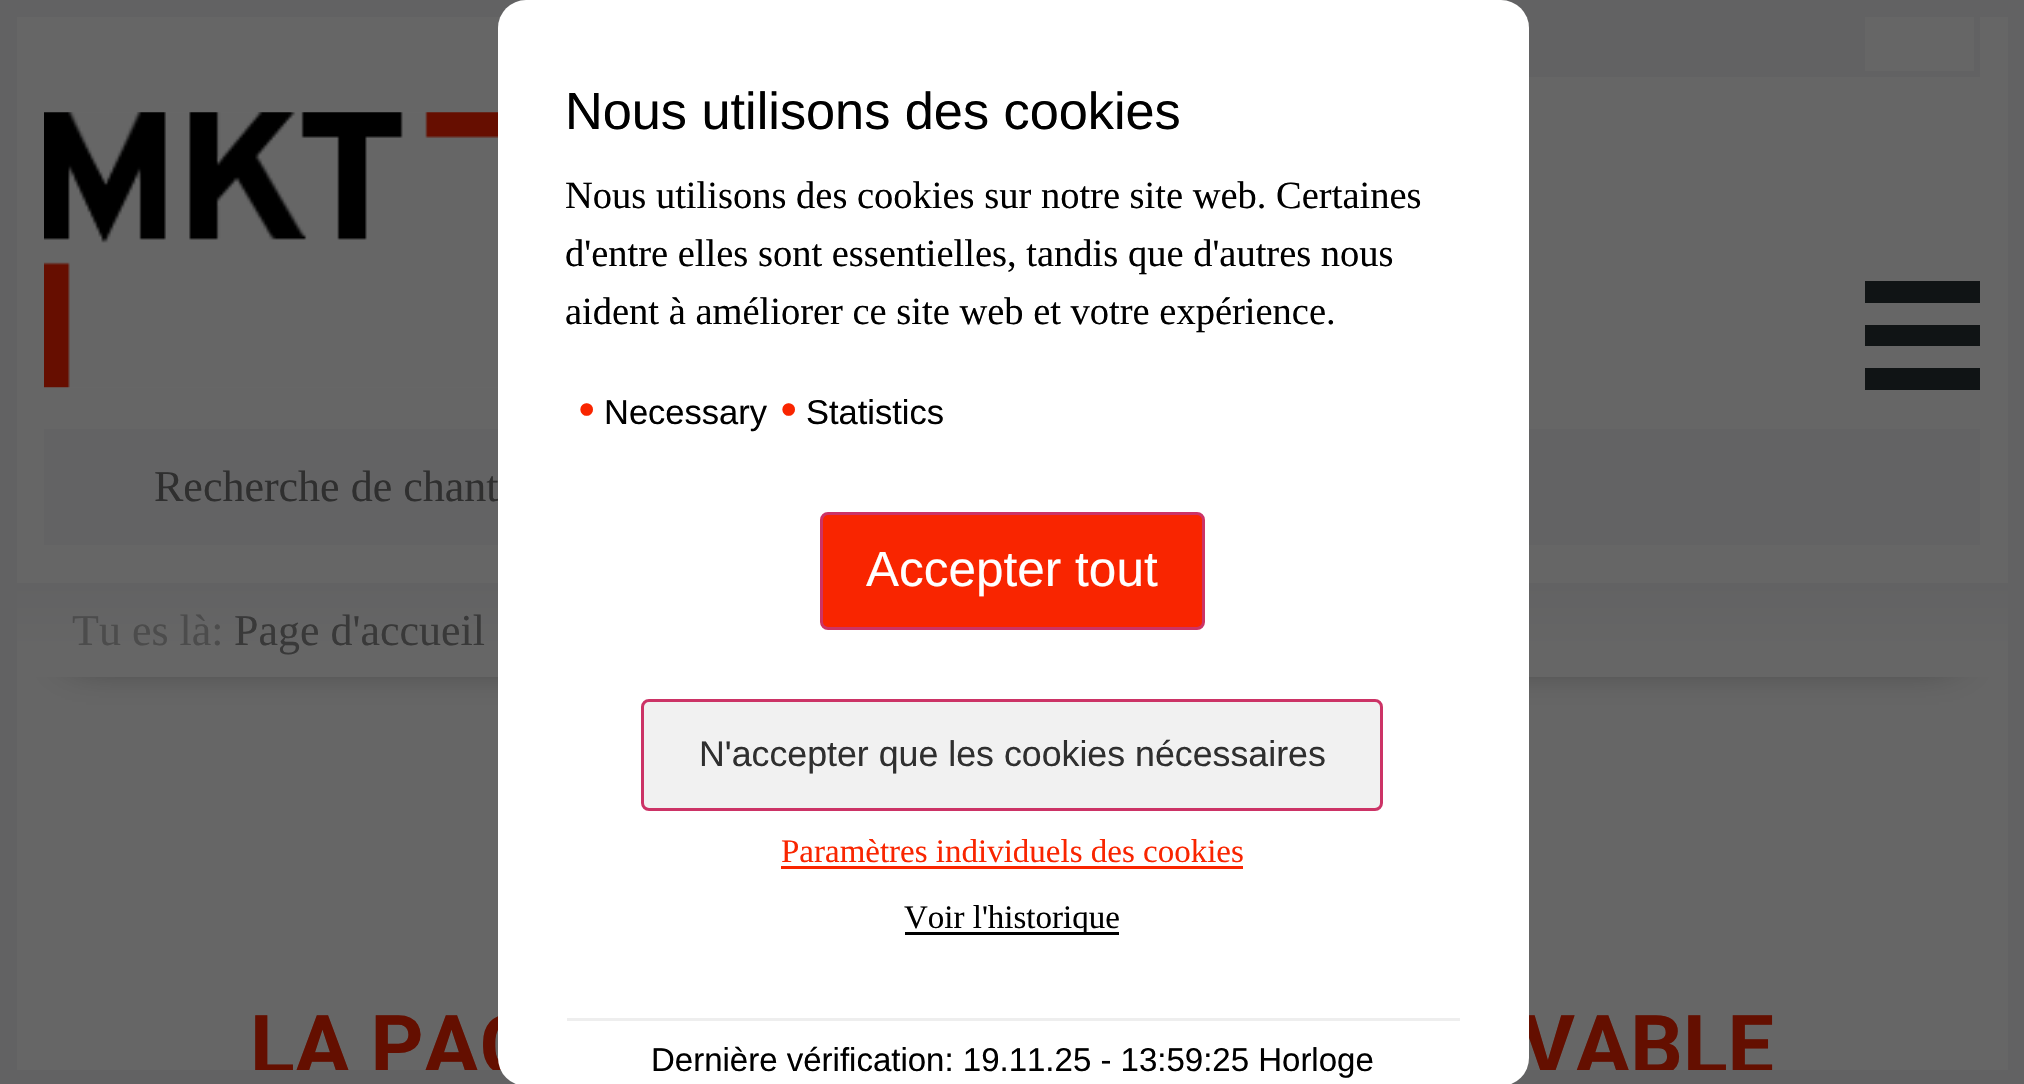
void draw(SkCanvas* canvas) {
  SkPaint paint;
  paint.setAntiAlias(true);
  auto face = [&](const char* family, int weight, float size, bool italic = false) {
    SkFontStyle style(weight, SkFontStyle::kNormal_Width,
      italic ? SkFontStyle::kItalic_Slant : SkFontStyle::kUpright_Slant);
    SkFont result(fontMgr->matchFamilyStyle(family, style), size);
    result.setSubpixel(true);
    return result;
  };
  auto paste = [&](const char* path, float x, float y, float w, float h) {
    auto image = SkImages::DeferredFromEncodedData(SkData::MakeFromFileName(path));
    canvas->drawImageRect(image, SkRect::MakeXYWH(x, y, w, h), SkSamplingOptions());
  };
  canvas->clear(0xffffffff);
  paint.setStroke(true);
  paint.setStrokeWidth(17);
  paint.setColor(0xff626263);
  canvas->drawRect(SkRect::MakeXYWH(8.5f, -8.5f, 2007, 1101), paint);
  paint.setStroke(false);
  paint.setColor(0xff666666);
  canvas->drawRect(SkRect::MakeXYWH(17, 677, 1991, 393), paint);
  paint.setColor(0xb8000000);
  paint.setMaskFilter(SkMaskFilter::MakeBlur(kNormal_SkBlurStyle, 20.5f));
  canvas->drawRect(SkRect::MakeXYWH(72, 22, 1881, 633), paint);
  paint.setMaskFilter(nullptr);
  paint.setColor(0xff666666);
  canvas->drawRect(SkRect::MakeXYWH(17, 17, 1991, 566), paint);
  paint.setStroke(true);
  paint.setStrokeWidth(6);
  paint.setColor(0xff626263);
  canvas->drawRect(SkRect::MakeXYWH(1862, -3, 115, 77), paint);
  paint.setStroke(false);
  canvas->drawRect(SkRect::MakeXYWH(17, 0, 1990, 17), paint);
  canvas->drawRect(SkRect::MakeXYWH(1526, 17, 333, 60), paint);
  paste("img/1.png", 44, 112, 454, 276);
  {
    const struct { float x, y, w, h; SkColor color; } items[] = {
      {1865, 281, 115, 22, 0xff101415},
      {1865, 325, 115, 21, 0xff101415},
      {1865, 368, 115, 22, 0xff101415},
      {44, 429, 1936, 116, 0xff636364},
    };
    for (auto [x, y, w, h, color] : items) {
      paint.setColor(color);
      canvas->drawRect(SkRect::MakeXYWH(x, y, w, h), paint);
    }
  }
  {
    const SkColor colors[] = {0xff626263, 0xff666666};
    const float stops[] = {0, 0.7f};
    const SkPoint ends[] = {{1012, 583}, {1012, 677}};
    paint.setShader(SkGradientShader::MakeLinear(ends, colors, stops, 2, SkTileMode::kClamp));
    paint.setAlpha(255);
  }
  canvas->drawRect(SkRect::MakeXYWH(17, 583, 1991, 94), paint);
  auto f0 = face("Liberation Serif", 400, 44);
  paint.setShader(nullptr);
  paint.setColor(0xff2f2f2f);
  canvas->drawString("Recherche de chant", 154, 501, f0, paint);
  paint.setColor(0xff4c4c4c);
  canvas->drawString("Tu es là:", 72, 645, f0, paint);
  paint.setColor(0xff393939);
  canvas->drawString("Page d'accueil", 234, 645, f0, paint);
  auto f1 = face("Roboto", 700, 82.5f);
  paint.setColor(0xff640f00);
  canvas->drawString("LA PAG", 250, 1074, f1, paint);
  canvas->drawString("VABLE", 1521, 1074, f1, paint);
  paint.setColor(0xff626263);
  canvas->drawRect(SkRect::MakeXYWH(17, 1070, 1990, 14), paint);
  paint.setColor(0xffffffff);
  canvas->drawRoundRect(SkRect::MakeXYWH(498, 0, 1031, 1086), 28, 28, paint);
  paint.setColor(0xfff1f1f1);
  canvas->drawRoundRect(SkRect::MakeXYWH(642.5f, 700.5f, 739, 109), 6.5f, 6.5f, paint);
  paint.setStroke(true);
  paint.setStrokeWidth(3);
  paint.setColor(0xffcc3366);
  canvas->drawRoundRect(SkRect::MakeXYWH(642.5f, 700.5f, 739, 109), 6.5f, 6.5f, paint);
  auto f2 = face("Liberation Sans", 400, 35.75f);
  paint.setStroke(false);
  paint.setColor(0xff2f2f2f);
  canvas->drawString("N'accepter que les cookies nécessaires", 699, 766, f2, paint);
  paint.setColor(0xfff92500);
  canvas->drawRoundRect(SkRect::MakeXYWH(821.5f, 513.5f, 382, 115), 6.5f, 6.5f, paint);
  paint.setStroke(true);
  paint.setColor(0xffcc3366);
  canvas->drawRoundRect(SkRect::MakeXYWH(821.5f, 513.5f, 382, 115), 6.5f, 6.5f, paint);
  auto f3 = face("Liberation Sans", 400, 49.5f);
  paint.setStroke(false);
  paint.setColor(0xffffffff);
  canvas->drawString("Accepter tout", 866, 586, f3, paint);
  auto f4 = face("Liberation Sans", 400, 33);
  paint.setColor(0xff000000);
  canvas->drawString("Dernière vérification: 19.11.25 - 13:59:25 Horloge", 651, 1071, f4, paint);
  canvas->drawRect(SkRect::MakeXYWH(905, 932, 214, 3), paint);
  auto f5 = face("Liberation Serif", 400, 33);
  canvas->drawString("Voir l'historique", 904, 928, f5, paint);
  paint.setColor(0xfff92500);
  canvas->drawString("Paramètres individuels des cookies", 781, 862, f5, paint);
  canvas->drawRect(SkRect::MakeXYWH(781, 866, 462, 3), paint);
  auto f6 = face("Liberation Sans", 400, 34.5f);
  paint.setColor(0xff000000);
  canvas->drawString("Statistics", 806, 424, f6, paint);
  auto f7 = face("Liberation Sans", 700, 44);
  paint.setColor(0xfff92500);
  canvas->drawString("•", 781, 424, f7, paint);
  paint.setColor(0xff000000);
  canvas->drawString("Necessary", 604, 424, f6, paint);
  paint.setColor(0xfff92500);
  canvas->drawString("•", 579, 424, f7, paint);
  auto f8 = face("Liberation Serif", 400, 38.5f);
  paint.setColor(0xff000000);
  {
    const struct { const char* s; float x, y; } items[] = {
      {"aident à améliorer ce site web et votre expérience.", 565, 324},
      {"d'entre elles sont essentielles, tandis que d'autres nous", 565, 266},
      {"Nous utilisons des cookies sur notre site web. Certaines", 565, 208},
    };
    for (auto [s, x, y] : items) {
      canvas->drawString(s, x, y, f8, paint);
    }
  }
  auto f9 = face("Liberation Sans", 400, 52.25f);
  canvas->drawString("Nous utilisons des cookies", 565, 129, f9, paint);
  paint.setColor(0xffeeeeee);
  canvas->drawRect(SkRect::MakeXYWH(567, 1018, 893, 3), paint);
}
